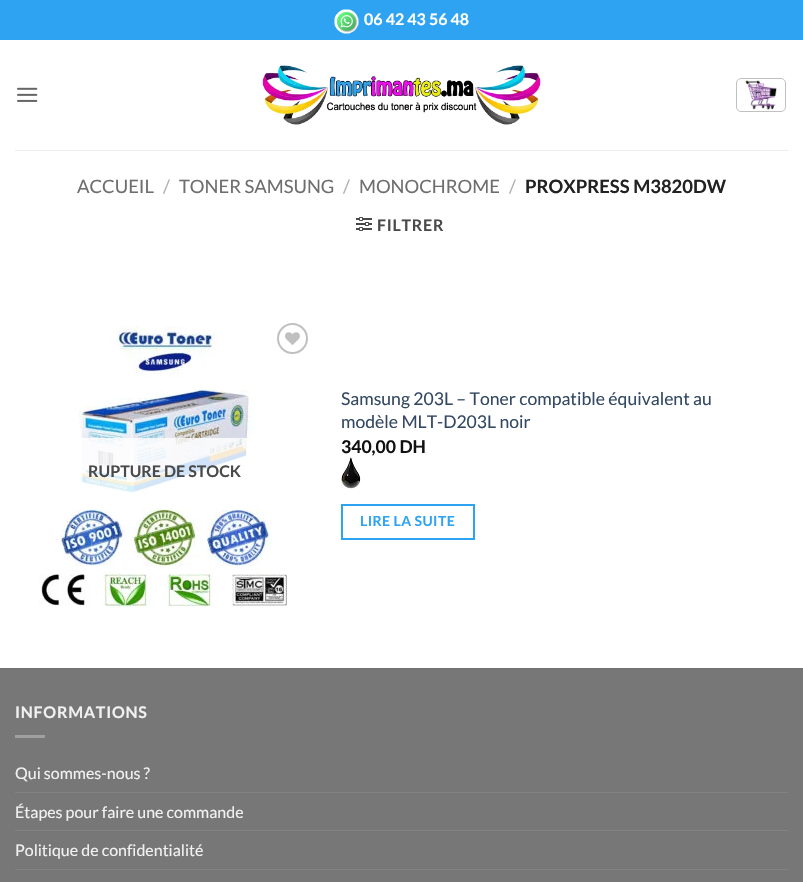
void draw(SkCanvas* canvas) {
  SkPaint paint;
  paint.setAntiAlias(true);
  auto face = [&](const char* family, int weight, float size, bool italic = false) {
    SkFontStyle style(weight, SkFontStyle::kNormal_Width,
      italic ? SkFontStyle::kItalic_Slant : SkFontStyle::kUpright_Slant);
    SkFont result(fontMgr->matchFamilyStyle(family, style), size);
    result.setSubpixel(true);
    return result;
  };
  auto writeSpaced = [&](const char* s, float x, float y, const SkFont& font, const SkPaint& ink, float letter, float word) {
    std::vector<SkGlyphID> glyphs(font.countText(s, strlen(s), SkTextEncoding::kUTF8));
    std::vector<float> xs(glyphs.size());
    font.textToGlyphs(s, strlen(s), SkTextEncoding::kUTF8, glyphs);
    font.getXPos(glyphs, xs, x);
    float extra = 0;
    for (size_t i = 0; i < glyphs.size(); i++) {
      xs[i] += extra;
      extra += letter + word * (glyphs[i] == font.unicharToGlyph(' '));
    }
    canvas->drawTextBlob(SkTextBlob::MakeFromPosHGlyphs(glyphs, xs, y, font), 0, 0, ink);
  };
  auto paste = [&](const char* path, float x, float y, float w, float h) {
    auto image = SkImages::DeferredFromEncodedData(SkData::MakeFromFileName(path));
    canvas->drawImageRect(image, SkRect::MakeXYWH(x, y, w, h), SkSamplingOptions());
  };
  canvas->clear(0xffffffff);
  paint.setColor(0xff2ea3f2);
  canvas->drawRect(SkRect::MakeXYWH(0, 0, 803, 40), paint);
  paste("img/1.png", 334, 9, 25, 25);
  paste("img/2.png", 17, 87, 21, 15);
  paste("img/3.png", 262, 65, 279, 60);
  paint.setStroke(true);
  paint.setStrokeWidth(1);
  paint.setColor(0xffc0c0c0);
  canvas->drawRoundRect(SkRect::MakeXYWH(736.5f, 78.5f, 49, 33), 4.5f, 4.5f, paint);
  paste("img/4.png", 745, 80, 32, 30);
  paint.setStroke(false);
  paint.setColor(0xffededed);
  canvas->drawRect(SkRect::MakeXYWH(15, 150, 773, 1), paint);
  paste("img/5.png", 356, 217, 16, 14);
  paste("img/6.png", 39, 326, 248, 281);
  paint.setStroke(true);
  paint.setStrokeWidth(2);
  paint.setColor(0xffc0c0c0);
  canvas->drawCircle(292.5f, 338.5f, 14.5f, paint);
  paste("img/7.png", 285, 332, 15, 13);
  paint.setStroke(false);
  paint.setColor(0xcfffffff);
  canvas->drawRect(SkRect::MakeXYWH(79, 438, 170, 57), paint);
  paste("img/8.png", 341, 457, 20, 32);
  paint.setStroke(true);
  paint.setColor(0xff2ea3f2);
  canvas->drawRect(SkRect::MakeXYWH(342, 505, 132, 34), paint);
  paint.setStroke(false);
  {
    const struct { float x, y, w, h; SkColor color; } items[] = {
      {0, 669, 803, 213, 0xff777777},
      {0, 668, 803, 1, 0xff717171},
      {15, 735, 30, 3, 0xffa0a0a0},
      {15, 792, 773, 1, 0xff828282},
      {15, 830, 773, 1, 0xff828282},
      {15, 869, 773, 1, 0xff828282},
    };
    for (auto [x, y, w, h, color] : items) {
      paint.setColor(color);
      canvas->drawRect(SkRect::MakeXYWH(x, y, w, h), paint);
    }
  }
  auto f0 = face("Lato", 700, 16);
  paint.setColor(0xffffffff);
  canvas->drawString("06 42 43 56 48", 364, 25, f0, paint);
  auto f1 = face("Lato", 400, 18.4f);
  paint.setColor(0xff6e6e6e);
  canvas->drawString("ACCUEIL", 77, 193, f1, paint);
  paint.setColor(0xffb2b2b2);
  canvas->drawString("/", 163, 193, f1, paint);
  paint.setColor(0xff6e6e6e);
  canvas->drawString("TONER SAMSUNG", 179, 193, f1, paint);
  paint.setColor(0xffb2b2b2);
  canvas->drawString("/", 343, 193, f1, paint);
  paint.setColor(0xff6e6e6e);
  canvas->drawString("MONOCHROME", 359, 193, f1, paint);
  paint.setColor(0xffb2b2b2);
  canvas->drawString("/", 509, 193, f1, paint);
  auto f2 = face("Lato", 700, 18.4f);
  paint.setColor(0xff222222);
  canvas->drawString("PROXPRESS M3820DW", 525, 193, f2, paint);
  paint.setColor(0xff4a4a4a);
  writeSpaced("FILTRER", 377, 231, f0, paint, 0.75f, 0);
  canvas->drawString("RUPTURE DE STOCK", 88, 477, f0, paint);
  auto f3 = face("Lato", 400, 17.6f);
  paint.setColor(0xff334862);
  canvas->drawString("Samsung 203L – Toner compatible équivalent au", 341, 405, f3, paint);
  canvas->drawString("modèle MLT-D203L noir", 341, 428, f3, paint);
  auto f4 = face("Lato", 700, 17.6f);
  paint.setColor(0xff111111);
  canvas->drawString("340,00 DH", 341, 453, f4, paint);
  auto f5 = face("Lato", 700, 14);
  paint.setColor(0xff2ea3f2);
  writeSpaced("LIRE LA SUITE", 360, 526, f5, paint, 0.4f, 0);
  paint.setColor(0xfff1f1f1);
  writeSpaced("INFORMATIONS", 15, 718, f0, paint, 0.75f, 0);
  auto f6 = face("Lato", 400, 16);
  {
    const struct { const char* s; float x, y; } items[] = {
      {"Qui sommes-nous ?", 15, 779},
      {"Étapes pour faire une commande", 15, 818},
      {"Politique de confidentialité", 15, 856},
    };
    for (auto [s, x, y] : items) {
      canvas->drawString(s, x, y, f6, paint);
    }
  }
}
